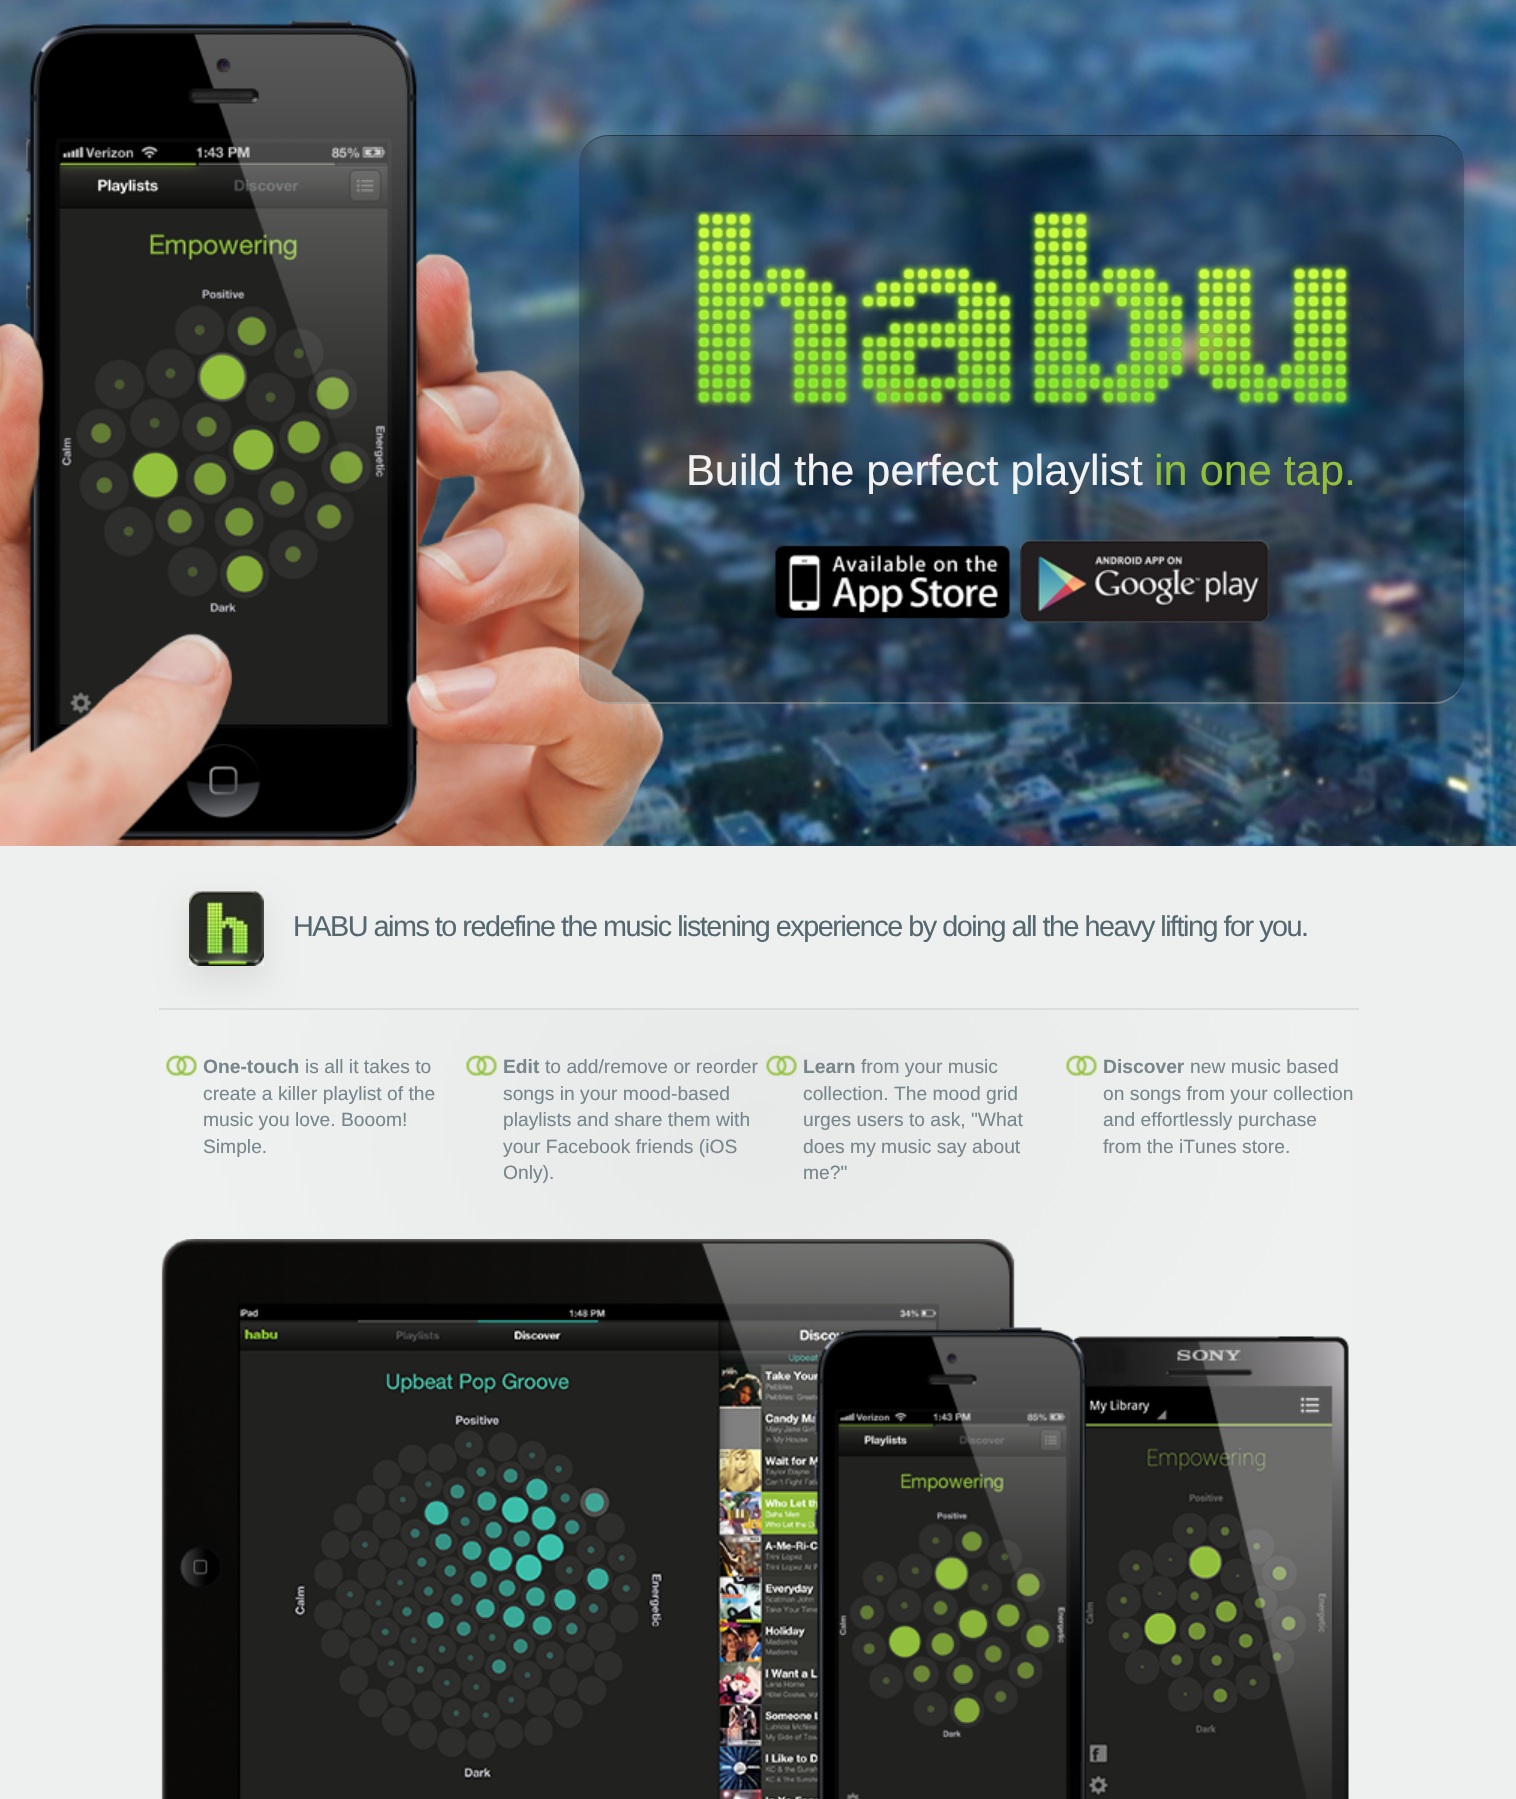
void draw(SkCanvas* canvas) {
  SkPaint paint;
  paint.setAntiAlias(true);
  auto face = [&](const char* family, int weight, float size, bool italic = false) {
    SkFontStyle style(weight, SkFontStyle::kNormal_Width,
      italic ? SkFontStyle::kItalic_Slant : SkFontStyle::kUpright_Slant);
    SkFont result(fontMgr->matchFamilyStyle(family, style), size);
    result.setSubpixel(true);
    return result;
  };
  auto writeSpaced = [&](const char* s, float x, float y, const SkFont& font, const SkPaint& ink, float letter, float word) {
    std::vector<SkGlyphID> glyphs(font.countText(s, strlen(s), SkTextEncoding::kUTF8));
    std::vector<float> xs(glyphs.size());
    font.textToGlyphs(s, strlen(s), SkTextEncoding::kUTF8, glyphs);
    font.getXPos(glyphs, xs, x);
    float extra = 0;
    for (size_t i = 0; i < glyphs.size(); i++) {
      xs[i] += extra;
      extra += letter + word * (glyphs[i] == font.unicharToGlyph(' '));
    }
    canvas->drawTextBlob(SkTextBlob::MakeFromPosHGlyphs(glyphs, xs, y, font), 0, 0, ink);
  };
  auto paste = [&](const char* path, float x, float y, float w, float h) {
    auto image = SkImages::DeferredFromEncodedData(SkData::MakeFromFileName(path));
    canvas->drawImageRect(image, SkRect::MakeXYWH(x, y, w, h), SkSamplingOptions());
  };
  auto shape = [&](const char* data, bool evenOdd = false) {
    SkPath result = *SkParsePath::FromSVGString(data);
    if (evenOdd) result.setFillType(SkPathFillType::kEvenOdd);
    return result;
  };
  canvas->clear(0xffeef0f0);
  paste("img/1.png", 0, 0, 1516, 846);
  paint.setColor(0x33000000);
  canvas->drawRoundRect(SkRect::MakeXYWH(579, 135, 885, 569), 30, 30, paint);
  paint.setColor(0x66000000);
  canvas->drawPath(shape("M609 135C592 135 579 148 579 165C579 149 592 136 609 136H1434C1451 136 1464 149 1464 165C1464 148 1451 135 1434 135Z"), paint);
  paint.setColor(0x66c8c8c8);
  canvas->drawPath(shape("M1439 704C1454 701 1464 688 1464 674C1464 689 1451 702 1434 702H609C592 702 579 689 579 674C579 688 589 701 604 704Z"), paint);
  paste("img/2.png", 693, 211, 659, 197);
  paste("img/3.png", 775, 545, 235, 74);
  paste("img/4.png", 1020, 539, 249, 84);
  canvas->save();
  canvas->clipPath(shape("M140 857H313V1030H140ZM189 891H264V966H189Z", true), true);
  paint.setColor(0xffdddddd);
  paint.setMaskFilter(SkMaskFilter::MakeBlur(kNormal_SkBlurStyle, 15));
  canvas->drawRect(SkRect::MakeXYWH(186, 903, 81, 81), paint);
  paint.setMaskFilter(nullptr);
  canvas->restore();
  paste("img/5.png", 189, 891, 75, 75);
  paste("img/6.png", 161, 1010, 1188, 789);
  paint.setColor(0xffdcdede);
  canvas->drawRect(SkRect::MakeXYWH(159, 1008, 1200, 2), paint);
  paste("img/7.png", 166, 1054, 31, 22);
  paste("img/8.png", 466, 1054, 31, 22);
  paste("img/9.png", 766, 1054, 31, 22);
  paste("img/10.png", 1066, 1054, 31, 22);
  auto f0 = face("Liberation Sans", 400, 43.25f);
  paint.setColor(0xfff2f2f2);
  canvas->drawString("Build the perfect playlist", 686, 485, f0, paint);
  paint.setColor(0xff92c03c);
  canvas->drawString("in one tap.", 1154, 485, f0, paint);
  auto f1 = face("Liberation Sans", 400, 28.8f);
  paint.setColor(0xff55686f);
  writeSpaced("HABU aims to redefine the music listening experience by doing all the heavy lifting for you.", 293, 936, f1, paint, -1.5f, 0);
  auto f2 = face("Liberation Sans", 700, 19.25f);
  paint.setColor(0xff76868b);
  canvas->drawString("One-touch", 203, 1073, f2, paint);
  auto f3 = face("Liberation Sans", 400, 19.25f);
  {
    const struct { const char* s; float x, y; } items[] = {
      {"is all it takes to", 305, 1073},
      {"create a killer playlist of the", 203, 1100},
      {"music you love. Booom!", 203, 1126},
      {"Simple.", 203, 1153},
    };
    for (auto [s, x, y] : items) {
      canvas->drawString(s, x, y, f3, paint);
    }
  }
  canvas->drawString("Edit", 503, 1073, f2, paint);
  {
    const struct { const char* s; float x, y; } items[] = {
      {"to add/remove or reorder", 545, 1073},
      {"songs in your mood-based", 503, 1100},
      {"playlists and share them with", 503, 1126},
      {"your Facebook friends (iOS", 503, 1153},
      {"Only).", 503, 1179},
    };
    for (auto [s, x, y] : items) {
      canvas->drawString(s, x, y, f3, paint);
    }
  }
  canvas->drawString("Learn", 803, 1073, f2, paint);
  {
    const struct { const char* s; float x, y; } items[] = {
      {"from your music", 861, 1073},
      {"collection. The mood grid", 803, 1100},
      {"urges users to ask, \"What", 803, 1126},
      {"does my music say about", 803, 1153},
      {"me?\"", 803, 1179},
    };
    for (auto [s, x, y] : items) {
      canvas->drawString(s, x, y, f3, paint);
    }
  }
  canvas->drawString("Discover", 1103, 1073, f2, paint);
  {
    const struct { const char* s; float x, y; } items[] = {
      {"new music based", 1190, 1073},
      {"on songs from your collection", 1103, 1100},
      {"and effortlessly purchase", 1103, 1126},
      {"from the iTunes store.", 1103, 1153},
    };
    for (auto [s, x, y] : items) {
      canvas->drawString(s, x, y, f3, paint);
    }
  }
}
